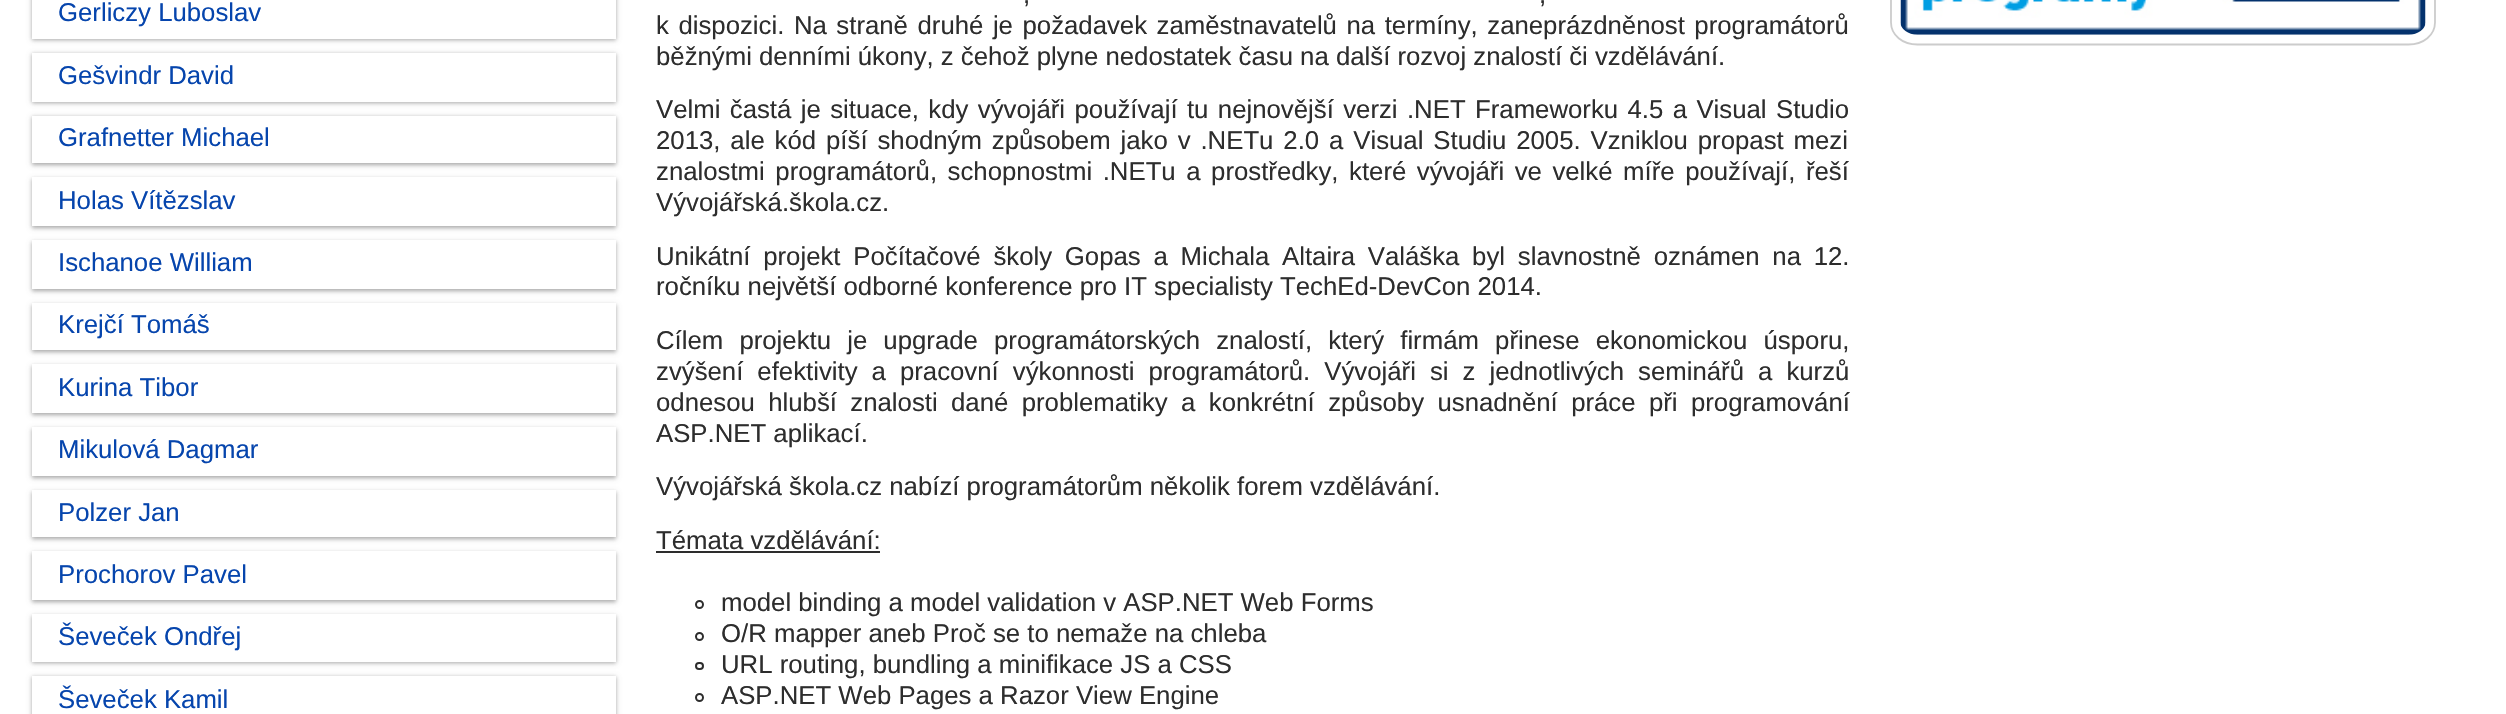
void draw(SkCanvas* canvas) {
  SkPaint paint;
  paint.setAntiAlias(true);
  auto face = [&](const char* family, int weight, float size, bool italic = false) {
    SkFontStyle style(weight, SkFontStyle::kNormal_Width,
      italic ? SkFontStyle::kItalic_Slant : SkFontStyle::kUpright_Slant);
    SkFont result(fontMgr->matchFamilyStyle(family, style), size);
    result.setSubpixel(true);
    return result;
  };
  auto writeSpaced = [&](const char* s, float x, float y, const SkFont& font, const SkPaint& ink, float letter, float word) {
    std::vector<SkGlyphID> glyphs(font.countText(s, strlen(s), SkTextEncoding::kUTF8));
    std::vector<float> xs(glyphs.size());
    font.textToGlyphs(s, strlen(s), SkTextEncoding::kUTF8, glyphs);
    font.getXPos(glyphs, xs, x);
    float extra = 0;
    for (size_t i = 0; i < glyphs.size(); i++) {
      xs[i] += extra;
      extra += letter + word * (glyphs[i] == font.unicharToGlyph(' '));
    }
    canvas->drawTextBlob(SkTextBlob::MakeFromPosHGlyphs(glyphs, xs, y, font), 0, 0, ink);
  };
  auto paste = [&](const char* path, float x, float y, float w, float h) {
    auto image = SkImages::DeferredFromEncodedData(SkData::MakeFromFileName(path));
    canvas->drawImageRect(image, SkRect::MakeXYWH(x, y, w, h), SkSamplingOptions());
  };
  auto shape = [&](const char* data, bool evenOdd = false) {
    SkPath result = *SkParsePath::FromSVGString(data);
    if (evenOdd) result.setFillType(SkPathFillType::kEvenOdd);
    return result;
  };
  canvas->clear(0xffffffff);
  paint.setColor(0x3d000000);
  paint.setMaskFilter(SkMaskFilter::MakeBlur(kNormal_SkBlurStyle, 2));
  canvas->drawRect(SkRect::MakeXYWH(32, -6, 584, 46), paint);
  paint.setMaskFilter(nullptr);
  paint.setColor(0x1f000000);
  paint.setMaskFilter(SkMaskFilter::MakeBlur(kNormal_SkBlurStyle, 2.5f));
  canvas->drawRect(SkRect::MakeXYWH(32, -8, 584, 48), paint);
  paint.setMaskFilter(nullptr);
  paint.setColor(0xffffffff);
  canvas->drawRect(SkRect::MakeXYWH(32, 0, 584, 39), paint);
  paint.setColor(0x3d000000);
  paint.setMaskFilter(SkMaskFilter::MakeBlur(kNormal_SkBlurStyle, 2));
  canvas->drawRect(SkRect::MakeXYWH(32, 54, 584, 49), paint);
  paint.setMaskFilter(nullptr);
  paint.setColor(0x1f000000);
  paint.setMaskFilter(SkMaskFilter::MakeBlur(kNormal_SkBlurStyle, 2.5f));
  canvas->drawRect(SkRect::MakeXYWH(32, 54, 584, 49), paint);
  paint.setMaskFilter(nullptr);
  paint.setColor(0xffffffff);
  canvas->drawRect(SkRect::MakeXYWH(32, 53, 584, 49), paint);
  paint.setColor(0x3d000000);
  paint.setMaskFilter(SkMaskFilter::MakeBlur(kNormal_SkBlurStyle, 2));
  canvas->drawRect(SkRect::MakeXYWH(32, 117, 584, 48), paint);
  paint.setMaskFilter(nullptr);
  paint.setColor(0x1f000000);
  paint.setMaskFilter(SkMaskFilter::MakeBlur(kNormal_SkBlurStyle, 2.5f));
  canvas->drawRect(SkRect::MakeXYWH(32, 117, 584, 48), paint);
  paint.setMaskFilter(nullptr);
  paint.setColor(0xffffffff);
  canvas->drawRect(SkRect::MakeXYWH(32, 116, 584, 47), paint);
  paint.setColor(0x3d000000);
  paint.setMaskFilter(SkMaskFilter::MakeBlur(kNormal_SkBlurStyle, 2));
  canvas->drawRect(SkRect::MakeXYWH(32, 179, 584, 49), paint);
  paint.setMaskFilter(nullptr);
  paint.setColor(0x1f000000);
  paint.setMaskFilter(SkMaskFilter::MakeBlur(kNormal_SkBlurStyle, 2.5f));
  canvas->drawRect(SkRect::MakeXYWH(32, 179, 584, 49), paint);
  paint.setMaskFilter(nullptr);
  paint.setColor(0xffffffff);
  canvas->drawRect(SkRect::MakeXYWH(32, 177, 584, 49), paint);
  paint.setColor(0x3d000000);
  paint.setMaskFilter(SkMaskFilter::MakeBlur(kNormal_SkBlurStyle, 2));
  canvas->drawRect(SkRect::MakeXYWH(32, 242, 584, 49), paint);
  paint.setMaskFilter(nullptr);
  paint.setColor(0x1f000000);
  paint.setMaskFilter(SkMaskFilter::MakeBlur(kNormal_SkBlurStyle, 2.5f));
  canvas->drawRect(SkRect::MakeXYWH(32, 242, 584, 49), paint);
  paint.setMaskFilter(nullptr);
  paint.setColor(0xffffffff);
  canvas->drawRect(SkRect::MakeXYWH(32, 240, 584, 49), paint);
  canvas->save();
  canvas->clipPath(shape("M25 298H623V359H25ZM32 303H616V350H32Z", true), true);
  paint.setColor(0x3d000000);
  paint.setMaskFilter(SkMaskFilter::MakeBlur(kNormal_SkBlurStyle, 2));
  canvas->drawRect(SkRect::MakeXYWH(32, 305, 584, 47), paint);
  paint.setMaskFilter(nullptr);
  canvas->restore();
  canvas->save();
  canvas->clipPath(shape("M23 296H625V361H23ZM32 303H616V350H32Z", true), true);
  paint.setColor(0x1f000000);
  paint.setMaskFilter(SkMaskFilter::MakeBlur(kNormal_SkBlurStyle, 2.5f));
  canvas->drawRect(SkRect::MakeXYWH(32, 305, 584, 47), paint);
  paint.setMaskFilter(nullptr);
  canvas->restore();
  canvas->save();
  canvas->clipPath(shape("M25 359H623V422H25ZM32 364H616V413H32Z", true), true);
  paint.setColor(0x3d000000);
  paint.setMaskFilter(SkMaskFilter::MakeBlur(kNormal_SkBlurStyle, 2));
  canvas->drawRect(SkRect::MakeXYWH(32, 366, 584, 49), paint);
  paint.setMaskFilter(nullptr);
  canvas->restore();
  canvas->save();
  canvas->clipPath(shape("M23 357H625V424H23ZM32 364H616V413H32Z", true), true);
  paint.setColor(0x1f000000);
  paint.setMaskFilter(SkMaskFilter::MakeBlur(kNormal_SkBlurStyle, 2.5f));
  canvas->drawRect(SkRect::MakeXYWH(32, 366, 584, 49), paint);
  paint.setMaskFilter(nullptr);
  canvas->restore();
  canvas->save();
  canvas->clipPath(shape("M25 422H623V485H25ZM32 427H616V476H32Z", true), true);
  paint.setColor(0x3d000000);
  paint.setMaskFilter(SkMaskFilter::MakeBlur(kNormal_SkBlurStyle, 2));
  canvas->drawRect(SkRect::MakeXYWH(32, 429, 584, 49), paint);
  paint.setMaskFilter(nullptr);
  canvas->restore();
  canvas->save();
  canvas->clipPath(shape("M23 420H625V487H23ZM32 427H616V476H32Z", true), true);
  paint.setColor(0x1f000000);
  paint.setMaskFilter(SkMaskFilter::MakeBlur(kNormal_SkBlurStyle, 2.5f));
  canvas->drawRect(SkRect::MakeXYWH(32, 429, 584, 49), paint);
  paint.setMaskFilter(nullptr);
  canvas->restore();
  canvas->save();
  canvas->clipPath(shape("M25 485H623V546H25ZM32 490H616V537H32Z", true), true);
  paint.setColor(0x3d000000);
  paint.setMaskFilter(SkMaskFilter::MakeBlur(kNormal_SkBlurStyle, 2));
  canvas->drawRect(SkRect::MakeXYWH(32, 492, 584, 47), paint);
  paint.setMaskFilter(nullptr);
  canvas->restore();
  canvas->save();
  canvas->clipPath(shape("M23 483H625V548H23ZM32 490H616V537H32Z", true), true);
  paint.setColor(0x1f000000);
  paint.setMaskFilter(SkMaskFilter::MakeBlur(kNormal_SkBlurStyle, 2.5f));
  canvas->drawRect(SkRect::MakeXYWH(32, 492, 584, 47), paint);
  paint.setMaskFilter(nullptr);
  canvas->restore();
  paint.setColor(0x3d000000);
  paint.setMaskFilter(SkMaskFilter::MakeBlur(kNormal_SkBlurStyle, 2));
  canvas->drawRect(SkRect::MakeXYWH(32, 553, 584, 49), paint);
  paint.setMaskFilter(nullptr);
  paint.setColor(0x1f000000);
  paint.setMaskFilter(SkMaskFilter::MakeBlur(kNormal_SkBlurStyle, 2.5f));
  canvas->drawRect(SkRect::MakeXYWH(32, 553, 584, 49), paint);
  paint.setMaskFilter(nullptr);
  paint.setColor(0xffffffff);
  canvas->drawRect(SkRect::MakeXYWH(32, 551, 584, 49), paint);
  paint.setColor(0x3d000000);
  paint.setMaskFilter(SkMaskFilter::MakeBlur(kNormal_SkBlurStyle, 2));
  canvas->drawRect(SkRect::MakeXYWH(32, 616, 584, 47), paint);
  paint.setMaskFilter(nullptr);
  paint.setColor(0x1f000000);
  paint.setMaskFilter(SkMaskFilter::MakeBlur(kNormal_SkBlurStyle, 2.5f));
  canvas->drawRect(SkRect::MakeXYWH(32, 616, 584, 47), paint);
  paint.setMaskFilter(nullptr);
  paint.setColor(0xffffffff);
  canvas->drawRect(SkRect::MakeXYWH(32, 614, 584, 48), paint);
  canvas->save();
  canvas->clipPath(shape("M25 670H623V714H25ZM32 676H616V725H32Z", true), true);
  paint.setColor(0x3d000000);
  paint.setMaskFilter(SkMaskFilter::MakeBlur(kNormal_SkBlurStyle, 2));
  canvas->drawRect(SkRect::MakeXYWH(32, 677, 584, 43), paint);
  paint.setMaskFilter(nullptr);
  canvas->restore();
  canvas->save();
  canvas->clipPath(shape("M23 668H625V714H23ZM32 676H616V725H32Z", true), true);
  paint.setColor(0x1f000000);
  paint.setMaskFilter(SkMaskFilter::MakeBlur(kNormal_SkBlurStyle, 2.5f));
  canvas->drawRect(SkRect::MakeXYWH(32, 677, 584, 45), paint);
  paint.setMaskFilter(nullptr);
  canvas->restore();
  paint.setColor(0xff2d2d2d);
  canvas->drawRect(SkRect::MakeXYWH(656, 551, 224, 2), paint);
  paint.setStroke(true);
  paint.setStrokeWidth(2);
  canvas->drawCircle(699.5f, 604.5f, 3.5f, paint);
  canvas->drawCircle(699.5f, 636.5f, 3.5f, paint);
  canvas->drawRoundRect(SkRect::MakeXYWH(696, 663, 7, 6), 3, 3, paint);
  canvas->drawCircle(699.5f, 697.5f, 3.5f, paint);
  paint.setStrokeWidth(1.8f);
  paint.setColor(0xffcccccc);
  canvas->drawPath(shape("M1917.5-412H2408.5C2423.5-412 2435-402.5 2435-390V22.5C2435 35 2423.5 44.5 2408.5 44.5H1917.5C1902.5 44.5 1891 35 1891 22.5V-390C1891-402.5 1902.5-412 1917.5-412Z"), paint);
  paste("img/1.png", 1900, 0, 526, 35);
  auto f0 = face("Liberation Sans", 400, 25.75f);
  paint.setStroke(false);
  paint.setColor(0xff0645ad);
  {
    const struct { const char* s; float x, y; } items[] = {
      {"Gerliczy Luboslav", 58, 21},
      {"Gešvindr David", 58, 84},
      {"Grafnetter Michael", 58, 146},
      {"Holas Vítězslav", 58, 209},
      {"Ischanoe William", 58, 271},
      {"Krejčí Tomáš", 58, 333},
      {"Kurina Tibor", 58, 396},
      {"Mikulová Dagmar", 58, 458},
      {"Polzer Jan", 58, 521},
      {"Prochorov Pavel", 58, 583},
      {"Ševeček Ondřej", 58, 645},
      {"Ševeček Kamil", 58, 708},
    };
    for (auto [s, x, y] : items) {
      canvas->drawString(s, x, y, f0, paint);
    }
  }
  paint.setColor(0xff2d2d2d);
  writeSpaced(",", 1023, 3, f0, paint, 0, 10);
  writeSpaced(",", 1539, 3, f0, paint, 0, 10);
  writeSpaced("k dispozici. Na straně druhé je požadavek zaměstnavatelů na termíny, zaneprázdněnost programátorů", 656, 34, f0, paint, 0, 2.4f);
  canvas->drawString("běžnými denními úkony, z čehož plyne nedostatek času na další rozvoj znalostí či vzdělávání.", 656, 65, f0, paint);
  writeSpaced("Velmi častá je situace, kdy vývojáři používají tu nejnovější verzi .NET Frameworku 4.5 a Visual Studio", 656, 118, f0, paint, 0, 2.25f);
  writeSpaced("2013, ale kód píší shodným způsobem jako v .NETu 2.0 a Visual Studiu 2005. Vzniklou propast mezi", 656, 149, f0, paint, 0, 2.75f);
  writeSpaced("znalostmi programátorů, schopnostmi .NETu a prostředky, které vývojáři ve velké míře používají, řeší", 656, 180, f0, paint, 0, 3.4f);
  canvas->drawString("Vývojářská.škola.cz.", 656, 211, f0, paint);
  writeSpaced("Unikátní projekt Počítačové školy Gopas a Michala Altaira Valáška byl slavnostně oznámen na 12.", 656, 265, f0, paint, 0, 5.6f);
  canvas->drawString("ročníku největší odborné konference pro IT specialisty TechEd-DevCon 2014.", 656, 295, f0, paint);
  writeSpaced("Cílem projektu je upgrade programátorských znalostí, který firmám přinese ekonomickou úsporu,", 656, 349, f0, paint, 0, 9);
  writeSpaced("zvýšení efektivity a pracovní výkonnosti programátorů. Vývojáři si z jednotlivých seminářů a kurzů", 656, 380, f0, paint, 0, 6.9f);
  writeSpaced("odnesou hlubší znalosti dané problematiky a konkrétní způsoby usnadnění práce při programování", 656, 411, f0, paint, 0, 6.25f);
  {
    const struct { const char* s; float x, y; } items[] = {
      {"ASP.NET aplikací.", 656, 442},
      {"Vývojářská škola.cz nabízí programátorům několik forem vzdělávání.", 656, 495},
      {"Témata vzdělávání:", 656, 549},
      {"model binding a model validation v ASP.NET Web Forms", 721, 611},
      {"O/R mapper aneb Proč se to nemaže na chleba", 721, 642},
      {"URL routing, bundling a minifikace JS a CSS", 721, 673},
      {"ASP.NET Web Pages a Razor View Engine", 721, 704},
    };
    for (auto [s, x, y] : items) {
      canvas->drawString(s, x, y, f0, paint);
    }
  }
}
